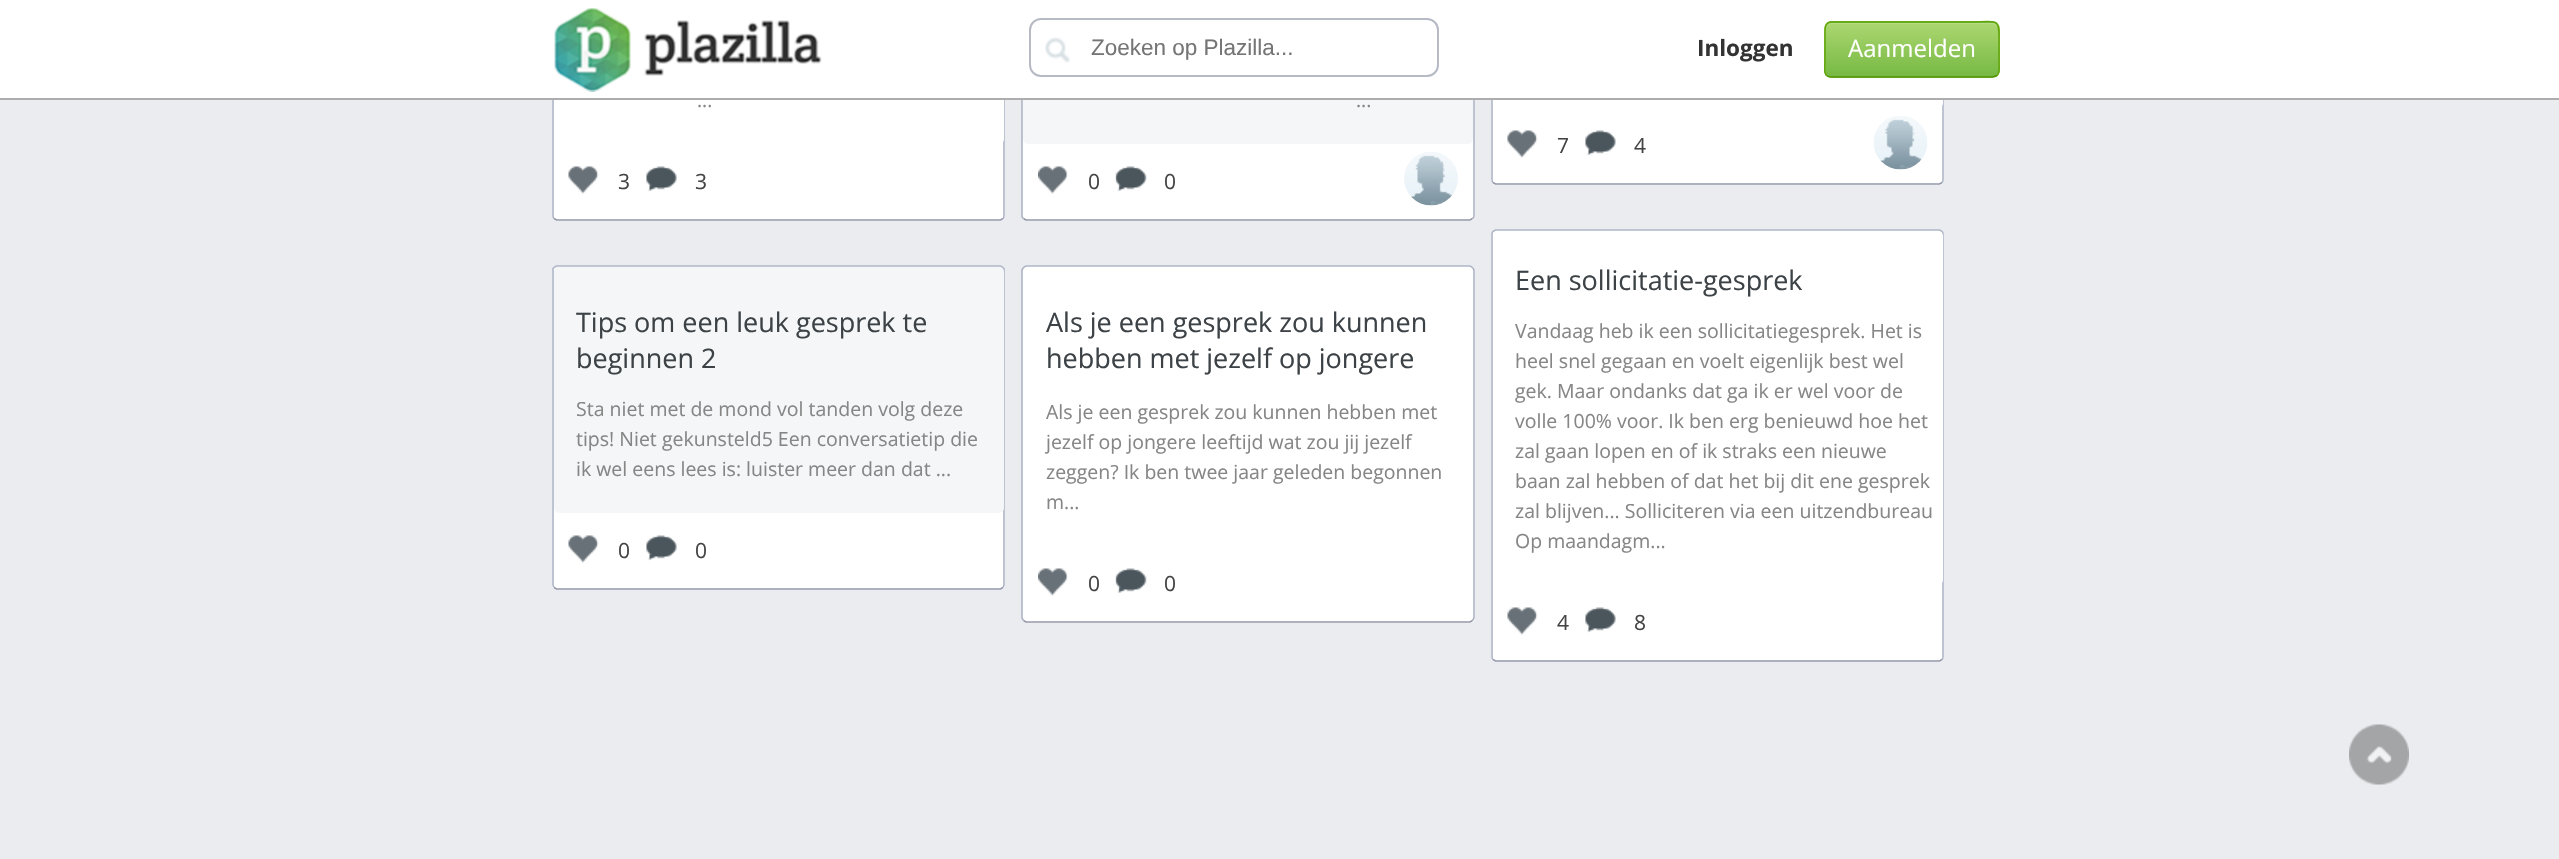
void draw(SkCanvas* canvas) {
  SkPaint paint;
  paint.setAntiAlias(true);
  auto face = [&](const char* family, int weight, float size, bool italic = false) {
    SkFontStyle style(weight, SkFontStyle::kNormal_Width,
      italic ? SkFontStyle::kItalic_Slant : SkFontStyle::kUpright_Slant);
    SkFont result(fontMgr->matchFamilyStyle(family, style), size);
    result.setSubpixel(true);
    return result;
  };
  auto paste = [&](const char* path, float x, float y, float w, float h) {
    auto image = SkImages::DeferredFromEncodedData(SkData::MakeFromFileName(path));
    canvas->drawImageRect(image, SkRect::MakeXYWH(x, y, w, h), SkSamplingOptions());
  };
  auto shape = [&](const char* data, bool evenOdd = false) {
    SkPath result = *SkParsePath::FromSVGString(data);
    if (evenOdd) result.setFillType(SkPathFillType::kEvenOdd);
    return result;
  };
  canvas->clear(0xffeaecef);
  paint.setColor(0xffffffff);
  canvas->drawRoundRect(SkRect::MakeXYWH(552, -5, 453, 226), 5, 5, paint);
  paint.setStroke(true);
  paint.setStrokeWidth(1.5f);
  paint.setColor(0xffa9b0c2);
  canvas->drawPath(shape("M1003-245.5C1004-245 1004-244 1004-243V216C1004 217 1004 218 1003 218.5"), paint);
  paint.setColor(0xff9296a8);
  canvas->drawPath(shape("M1003 218.5L1000.5 220H556.5L554 218.5"), paint);
  paint.setColor(0xffa9b0c2);
  canvas->drawPath(shape("M554 218.5C553 218 553 217 553 216V-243C553-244 553-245 554-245.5"), paint);
  paint.setStroke(false);
  paint.setColor(0xffffffff);
  canvas->drawRoundRect(SkRect::MakeXYWH(554, -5, 450, 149), 5, 5, paint);
  canvas->drawRoundRect(SkRect::MakeXYWH(1022, -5, 453, 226), 5, 5, paint);
  paint.setStroke(true);
  paint.setColor(0xffa9b0c2);
  canvas->drawPath(shape("M1472.5-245.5C1473.5-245 1474-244 1474-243V216C1474 217 1473.5 218 1472.5 218.5"), paint);
  paint.setColor(0xff9296a8);
  canvas->drawPath(shape("M1472.5 218.5L1470 220H1026L1023.5 218.5"), paint);
  paint.setColor(0xffa9b0c2);
  canvas->drawPath(shape("M1023.5 218.5C1022.5 218 1022 217 1022 216V-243C1022-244 1022.5-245 1023.5-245.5"), paint);
  paint.setStroke(false);
  paint.setColor(0xfff4f6f7);
  canvas->drawRoundRect(SkRect::MakeXYWH(1023, -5, 450, 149), 5, 5, paint);
  paint.setColor(0xffffffff);
  canvas->drawRoundRect(SkRect::MakeXYWH(1491, -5, 453, 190), 5, 5, paint);
  paint.setStroke(true);
  paint.setColor(0xffa9b0c2);
  canvas->drawPath(shape("M1942-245.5C1943-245 1943-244 1943-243V180C1943 181 1943 182 1942 182.5"), paint);
  paint.setColor(0xff9296a8);
  canvas->drawPath(shape("M1942 182.5L1939.5 184H1495.5L1493 182.5"), paint);
  paint.setColor(0xffa9b0c2);
  canvas->drawPath(shape("M1493 182.5C1492 182 1492 181 1492 180V-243C1492-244 1492-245 1493-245.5"), paint);
  paint.setStroke(false);
  paint.setColor(0xffffffff);
  canvas->drawRoundRect(SkRect::MakeXYWH(1493, -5, 450, 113), 5, 5, paint);
  canvas->drawRect(SkRect::MakeXYWH(0, 0, 2559, 98), paint);
  paint.setColor(0xffadadad);
  canvas->drawRect(SkRect::MakeXYWH(0, 98, 2559, 2), paint);
  paste("img/1.png", 554, 8, 268, 84);
  paint.setStroke(true);
  paint.setStrokeWidth(2);
  paint.setColor(0xffb6bac5);
  canvas->drawRoundRect(SkRect::MakeXYWH(1030, 19, 408, 57), 11, 11, paint);
  paste("img/2.png", 1045, 37, 25, 26);
  canvas->save();
  canvas->clipPath(shape("M1832 21H1992C1996.5 21 2000 24.5 2000 29V70C2000 74.5 1996.5 78 1992 78H1832C1827.5 78 1824 74.5 1824 70V29C1824 24.5 1827.5 21 1832 21Z"), true);
  paint.setStroke(false);
  {
    const SkColor colors[] = {0xffadd771, 0xff75b943};
    const float stops[] = {0, 1};
    const SkPoint ends[] = {{1912, -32}, {1912, 23}};
    paint.setShader(SkGradientShader::MakeLinear(ends, colors, stops, 2, SkTileMode::kClamp));
    paint.setAlpha(255);
  }
  canvas->drawRect(SkRect::MakeXYWH(1824, 21, 176, 2), paint);
  {
    const SkColor colors[] = {0xffadd771, 0xff75b943};
    const float stops[] = {0, 1};
    const SkPoint ends[] = {{1912, 22}, {1912, 77}};
    paint.setShader(SkGradientShader::MakeLinear(ends, colors, stops, 2, SkTileMode::kClamp));
    paint.setAlpha(255);
  }
  canvas->drawRect(SkRect::MakeXYWH(1824, 23, 176, 54), paint);
  {
    const SkColor colors[] = {0xffadd771, 0xff75b943};
    const float stops[] = {0, 1};
    const SkPoint ends[] = {{1912, 76}, {1912, 131}};
    paint.setShader(SkGradientShader::MakeLinear(ends, colors, stops, 2, SkTileMode::kClamp));
    paint.setAlpha(255);
  }
  canvas->drawRect(SkRect::MakeXYWH(1824, 77, 176, 1), paint);
  canvas->restore();
  paint.setShader(nullptr);
  paint.setColor(0xffb8dc85);
  canvas->drawPath(shape("M1832 24H1992C1995 24 1998 27 1998 30V29C1998 26 1995 23 1992 23H1832C1829 23 1826 26 1826 29V30C1826 27 1828 24 1832 24Z"), paint);
  paint.setStroke(true);
  paint.setStrokeWidth(1.5f);
  paint.setColor(0xff4d9200);
  canvas->drawPath(shape("M1997 75.5L1992.5 77H1831C1829.5 77 1828 76.5 1826.5 75.5"), paint);
  paint.setColor(0xff62a60a);
  canvas->drawPath(shape("M1826.5 75.5C1823.5 72.5 1825 67 1825 63.5V35.5C1825 30.5 1824 22 1831.5 22H1965C2002.5 22 1999 15.5 1999 49.5V63.5C1999 67 2000 72.5 1997 75.5"), paint);
  paste("img/3.png", 568, 166, 31, 28);
  paste("img/4.png", 646, 166, 31, 26);
  paste("img/5.png", 1038, 166, 30, 28);
  paste("img/6.png", 1115, 166, 32, 26);
  paste("img/7.png", 1404, 152, 54, 54);
  paste("img/3.png", 1507, 130, 31, 28);
  paste("img/4.png", 1585, 130, 31, 26);
  paste("img/8.png", 1873, 116, 55, 54);
  paint.setStroke(false);
  paint.setColor(0xffffffff);
  canvas->drawRoundRect(SkRect::MakeXYWH(552, 266, 453, 324), 5, 5, paint);
  paint.setStroke(true);
  paint.setColor(0xffafb6c8);
  canvas->drawPath(shape("M554 267.5L556.5 266H1000.5L1003 267.5"), paint);
  paint.setColor(0xffa9b0c2);
  canvas->drawPath(shape("M1003 267.5L1004 268.5V532.5V585L1003 587.5"), paint);
  paint.setColor(0xff9296a8);
  canvas->drawPath(shape("M1003 587.5L1000.5 589H556.5L554 587.5"), paint);
  paint.setColor(0xffa9b0c2);
  canvas->drawPath(shape("M554 587.5L553 585V268.5L554 267.5"), paint);
  paint.setStroke(false);
  paint.setColor(0xfff4f6f7);
  canvas->drawRoundRect(SkRect::MakeXYWH(554, 267, 450, 246), 5, 5, paint);
  paste("img/3.png", 568, 535, 31, 28);
  paste("img/4.png", 646, 535, 31, 26);
  paint.setColor(0xffffffff);
  canvas->drawRoundRect(SkRect::MakeXYWH(1022, 266, 453, 357), 5, 5, paint);
  paint.setStroke(true);
  paint.setColor(0xffafb6c8);
  canvas->drawPath(shape("M1023.5 267.5L1026 266H1470L1472.5 267.5"), paint);
  paint.setColor(0xffa9b0c2);
  canvas->drawPath(shape("M1472.5 267.5L1474 270V618L1472.5 620.5"), paint);
  paint.setColor(0xff9296a8);
  canvas->drawPath(shape("M1472.5 620.5L1470 622H1026L1023.5 620.5"), paint);
  paint.setColor(0xffa9b0c2);
  canvas->drawPath(shape("M1023.5 620.5L1022 618V270L1023.5 267.5"), paint);
  paint.setStroke(false);
  paint.setColor(0xffffffff);
  canvas->drawRoundRect(SkRect::MakeXYWH(1023, 267, 450, 279), 5, 5, paint);
  paste("img/5.png", 1038, 568, 30, 28);
  paste("img/6.png", 1115, 568, 32, 26);
  canvas->drawRoundRect(SkRect::MakeXYWH(1491, 230, 453, 432), 5, 5, paint);
  paint.setStroke(true);
  paint.setColor(0xffafb6c8);
  canvas->drawPath(shape("M1493 231.5L1495.5 230H1939.5L1942 231.5"), paint);
  paint.setColor(0xffa9b0c2);
  canvas->drawPath(shape("M1942 231.5C1943 232 1943 233 1943 234V657C1943 658 1943 659 1942 659.5"), paint);
  paint.setColor(0xff9296a8);
  canvas->drawPath(shape("M1942 659.5L1939.5 661H1495.5L1493 659.5"), paint);
  paint.setColor(0xffa9b0c2);
  canvas->drawPath(shape("M1493 659.5C1492 659 1492 658 1492 657V234C1492 233 1492 232 1493 231.5"), paint);
  paint.setStroke(false);
  paint.setColor(0xffffffff);
  canvas->drawRoundRect(SkRect::MakeXYWH(1493, 231, 450, 354), 5, 5, paint);
  paste("img/3.png", 1507, 607, 31, 28);
  paste("img/4.png", 1585, 607, 31, 26);
  paste("img/9.png", 2349, 724, 60, 61);
  auto f0 = face("Liberation Sans", 400, 22.5f);
  paint.setColor(0xff757575);
  canvas->drawString("Zoeken op Plazilla...", 1091, 55, f0, paint);
  auto f1 = face("Open Sans", 700, 22.5f);
  paint.setColor(0xff333333);
  canvas->drawString("Inloggen", 1697, 56, f1, paint);
  auto f2 = face("Open Sans", 400, 24);
  paint.setColor(0xffffffff);
  canvas->drawString("Aanmelden", 1848, 57, f2, paint);
  auto f3 = face("Open Sans", 400, 19.5f);
  paint.setColor(0xff868686);
  canvas->drawString("...", 697, 107, f3, paint);
  auto f4 = face("Open Sans", 400, 21);
  paint.setColor(0xff444444);
  canvas->drawString("3", 618, 189, f4, paint);
  canvas->drawString("3", 695, 189, f4, paint);
  paint.setColor(0xff868686);
  canvas->drawString("...", 1356, 107, f3, paint);
  paint.setColor(0xff444444);
  {
    const struct { const char* s; float x, y; } items[] = {
      {"0", 1088, 189},
      {"0", 1164, 189},
      {"7", 1557, 153},
      {"4", 1634, 153},
    };
    for (auto [s, x, y] : items) {
      canvas->drawString(s, x, y, f4, paint);
    }
  }
  auto f5 = face("Open Sans", 400, 27);
  paint.setColor(0xff3c4246);
  canvas->drawString("Tips om een leuk gesprek te", 576, 332, f5, paint);
  canvas->drawString("beginnen 2", 576, 368, f5, paint);
  paint.setColor(0xff868686);
  {
    const struct { const char* s; float x, y; } items[] = {
      {"Sta niet met de mond vol tanden volg deze", 576, 416},
      {"tips! Niet gekunsteld5 Een conversatietip die", 576, 446},
      {"ik wel eens lees is: luister meer dan dat ...", 576, 476},
    };
    for (auto [s, x, y] : items) {
      canvas->drawString(s, x, y, f3, paint);
    }
  }
  paint.setColor(0xff444444);
  canvas->drawString("0", 618, 558, f4, paint);
  canvas->drawString("0", 695, 558, f4, paint);
  paint.setColor(0xff3c4246);
  canvas->drawString("Als je een gesprek zou kunnen", 1046, 332, f5, paint);
  canvas->drawString("hebben met jezelf op jongere", 1046, 368, f5, paint);
  paint.setColor(0xff868686);
  {
    const struct { const char* s; float x, y; } items[] = {
      {"Als je een gesprek zou kunnen hebben met", 1046, 419},
      {"jezelf op jongere leeftijd wat zou jij jezelf", 1046, 449},
      {"zeggen? Ik ben twee jaar geleden begonnen", 1046, 479},
      {"m...", 1046, 509},
    };
    for (auto [s, x, y] : items) {
      canvas->drawString(s, x, y, f3, paint);
    }
  }
  paint.setColor(0xff444444);
  canvas->drawString("0", 1088, 591, f4, paint);
  canvas->drawString("0", 1164, 591, f4, paint);
  paint.setColor(0xff3c4246);
  canvas->drawString("Een sollicitatie-gesprek", 1515, 290, f5, paint);
  paint.setColor(0xff868686);
  {
    const struct { const char* s; float x, y; } items[] = {
      {"Vandaag heb ik een sollicitatiegesprek. Het is", 1515, 338},
      {"heel snel gegaan en voelt eigenlijk best wel", 1515, 368},
      {"gek. Maar ondanks dat ga ik er wel voor de", 1515, 398},
      {"volle 100% voor. Ik ben erg benieuwd hoe het", 1515, 428},
      {"zal gaan lopen en of ik straks een nieuwe", 1515, 458},
      {"baan zal hebben of dat het bij dit ene gesprek", 1515, 488},
      {"zal blijven... Solliciteren via een uitzendbureau", 1515, 518},
      {"Op maandagm...", 1515, 548},
    };
    for (auto [s, x, y] : items) {
      canvas->drawString(s, x, y, f3, paint);
    }
  }
  paint.setColor(0xff444444);
  canvas->drawString("4", 1557, 630, f4, paint);
  canvas->drawString("8", 1634, 630, f4, paint);
}
